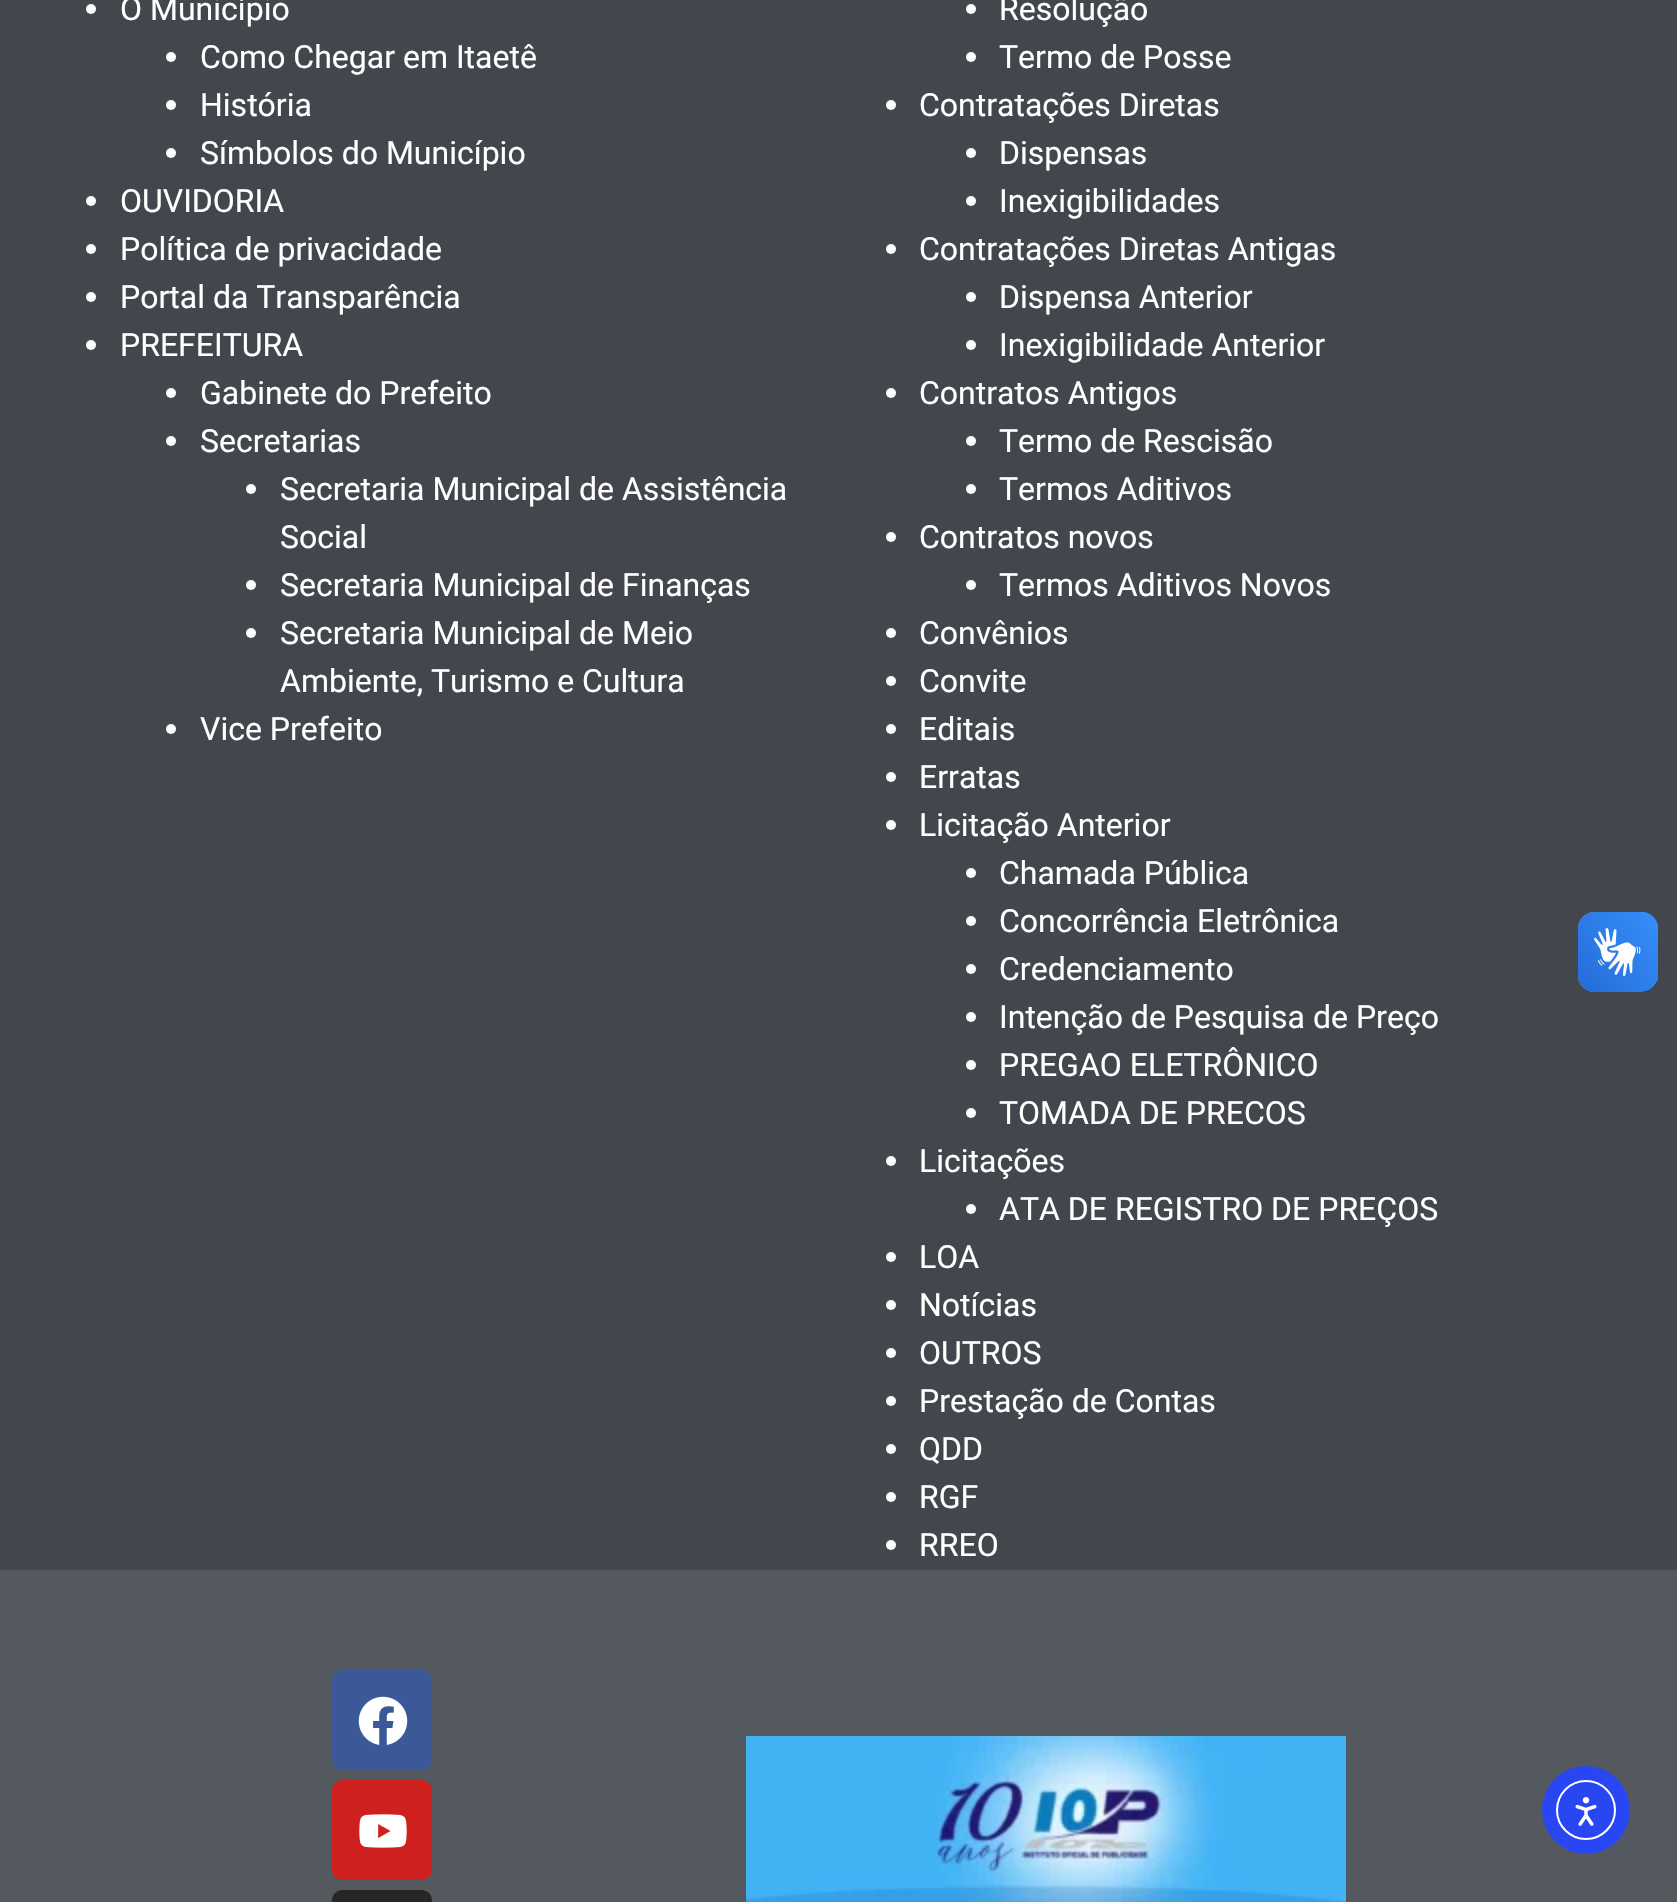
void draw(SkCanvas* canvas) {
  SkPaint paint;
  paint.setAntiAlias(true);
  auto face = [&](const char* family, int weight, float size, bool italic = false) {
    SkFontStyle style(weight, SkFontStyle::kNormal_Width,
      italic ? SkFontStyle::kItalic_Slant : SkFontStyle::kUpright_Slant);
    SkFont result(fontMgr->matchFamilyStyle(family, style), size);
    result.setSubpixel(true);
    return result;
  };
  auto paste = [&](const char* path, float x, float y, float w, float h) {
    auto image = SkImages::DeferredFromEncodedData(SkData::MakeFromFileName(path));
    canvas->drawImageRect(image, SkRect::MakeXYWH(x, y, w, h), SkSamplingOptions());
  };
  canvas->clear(0xff43464c);
  paint.setColor(0xffffffff);
  canvas->drawCircle(91, 9, 5, paint);
  canvas->drawCircle(171, 57, 5, paint);
  canvas->drawCircle(171, 105, 5, paint);
  canvas->drawCircle(171, 153, 5, paint);
  canvas->drawCircle(91, 201, 5, paint);
  canvas->drawCircle(91, 249, 5, paint);
  canvas->drawCircle(91, 297, 5, paint);
  canvas->drawCircle(91, 345, 5, paint);
  canvas->drawCircle(171, 393, 5, paint);
  canvas->drawCircle(171, 441, 5, paint);
  canvas->drawCircle(251, 489, 5, paint);
  canvas->drawCircle(251, 585, 5, paint);
  canvas->drawCircle(251, 633, 5, paint);
  canvas->drawCircle(171, 729, 5, paint);
  canvas->drawCircle(971, 9, 5, paint);
  canvas->drawCircle(971, 57, 5, paint);
  canvas->drawCircle(891, 105, 5, paint);
  canvas->drawCircle(971, 153, 5, paint);
  canvas->drawCircle(971, 201, 5, paint);
  canvas->drawCircle(891, 249, 5, paint);
  canvas->drawCircle(971, 297, 5, paint);
  canvas->drawCircle(971, 345, 5, paint);
  canvas->drawCircle(891, 393, 5, paint);
  canvas->drawCircle(971, 441, 5, paint);
  canvas->drawCircle(971, 489, 5, paint);
  canvas->drawCircle(891, 537, 5, paint);
  canvas->drawCircle(971, 585, 5, paint);
  canvas->drawCircle(891, 633, 5, paint);
  canvas->drawCircle(891, 681, 5, paint);
  canvas->drawCircle(891, 729, 5, paint);
  canvas->drawCircle(891, 777, 5, paint);
  canvas->drawCircle(891, 825, 5, paint);
  canvas->drawCircle(971, 873, 5, paint);
  canvas->drawCircle(971, 921, 5, paint);
  canvas->drawCircle(971, 969, 5, paint);
  canvas->drawCircle(971, 1017, 5, paint);
  canvas->drawCircle(971, 1065, 5, paint);
  canvas->drawCircle(971, 1113, 5, paint);
  canvas->drawCircle(891, 1161, 5, paint);
  canvas->drawCircle(971, 1209, 5, paint);
  canvas->drawCircle(891, 1257, 5, paint);
  canvas->drawCircle(891, 1305, 5, paint);
  canvas->drawCircle(891, 1353, 5, paint);
  canvas->drawCircle(891, 1401, 5, paint);
  canvas->drawCircle(891, 1449, 5, paint);
  canvas->drawCircle(891, 1497, 5, paint);
  canvas->drawCircle(891, 1545, 5, paint);
  paint.setColor(0xff54595f);
  canvas->drawRect(SkRect::MakeXYWH(0, 1570, 1677, 332), paint);
  paint.setColor(0xff3b5998);
  canvas->drawRoundRect(SkRect::MakeXYWH(332, 1670, 100, 100), 10, 10, paint);
  paste("img/1.png", 358, 1696, 50, 49);
  paint.setColor(0xffcd201f);
  canvas->drawRoundRect(SkRect::MakeXYWH(332, 1780, 100, 100), 10, 10, paint);
  paste("img/2.png", 359, 1814, 48, 34);
  paint.setColor(0xff262626);
  canvas->drawRoundRect(SkRect::MakeXYWH(332, 1890, 100, 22), 10, 10, paint);
  paste("img/3.png", 746, 1736, 600, 166);
  paste("img/4.png", 1578, 912, 80, 80);
  paste("img/5.png", 1578, 912, 80, 80);
  paint.setColor(0xff2847f3);
  canvas->drawCircle(1586, 1810, 44, paint);
  paint.setStroke(true);
  paint.setStrokeWidth(2);
  paint.setColor(0xffffffff);
  canvas->drawCircle(1586, 1810, 29, paint);
  paste("img/6.png", 1575, 1797, 22, 29);
  auto f0 = face("Roboto", 400, 32);
  paint.setStroke(false);
  {
    const struct { const char* s; float x, y; } items[] = {
      {"O Município", 120, 20},
      {"Como Chegar em Itaetê", 200, 68},
      {"História", 200, 116},
      {"Símbolos do Município", 200, 164},
      {"OUVIDORIA", 120, 212},
      {"Política de privacidade", 120, 260},
      {"Portal da Transparência", 120, 308},
      {"PREFEITURA", 120, 356},
      {"Gabinete do Prefeito", 200, 404},
      {"Secretarias", 200, 452},
      {"Secretaria Municipal de Assistência", 280, 500},
      {"Social", 280, 548},
      {"Secretaria Municipal de Finanças", 280, 596},
      {"Secretaria Municipal de Meio", 280, 644},
      {"Ambiente, Turismo e Cultura", 280, 692},
      {"Vice Prefeito", 200, 740},
      {"Resolução", 999, 20},
      {"Termo de Posse", 999, 68},
      {"Contratações Diretas", 919, 116},
      {"Dispensas", 999, 164},
      {"Inexigibilidades", 999, 212},
      {"Contratações Diretas Antigas", 919, 260},
      {"Dispensa Anterior", 999, 308},
      {"Inexigibilidade Anterior", 999, 356},
      {"Contratos Antigos", 919, 404},
      {"Termo de Rescisão", 999, 452},
      {"Termos Aditivos", 999, 500},
      {"Contratos novos", 919, 548},
      {"Termos Aditivos Novos", 999, 596},
      {"Convênios", 919, 644},
      {"Convite", 919, 692},
      {"Editais", 919, 740},
      {"Erratas", 919, 788},
      {"Licitação Anterior", 919, 836},
      {"Chamada Pública", 999, 884},
      {"Concorrência Eletrônica", 999, 932},
      {"Credenciamento", 999, 980},
      {"Intenção de Pesquisa de Preço", 999, 1028},
      {"PREGAO ELETRÔNICO", 999, 1076},
      {"TOMADA DE PRECOS", 999, 1124},
      {"Licitações", 919, 1172},
      {"ATA DE REGISTRO DE PREÇOS", 999, 1220},
      {"LOA", 919, 1268},
      {"Notícias", 919, 1316},
      {"OUTROS", 919, 1364},
      {"Prestação de Contas", 919, 1412},
      {"QDD", 919, 1460},
      {"RGF", 919, 1508},
      {"RREO", 919, 1556},
    };
    for (auto [s, x, y] : items) {
      canvas->drawString(s, x, y, f0, paint);
    }
  }
}
